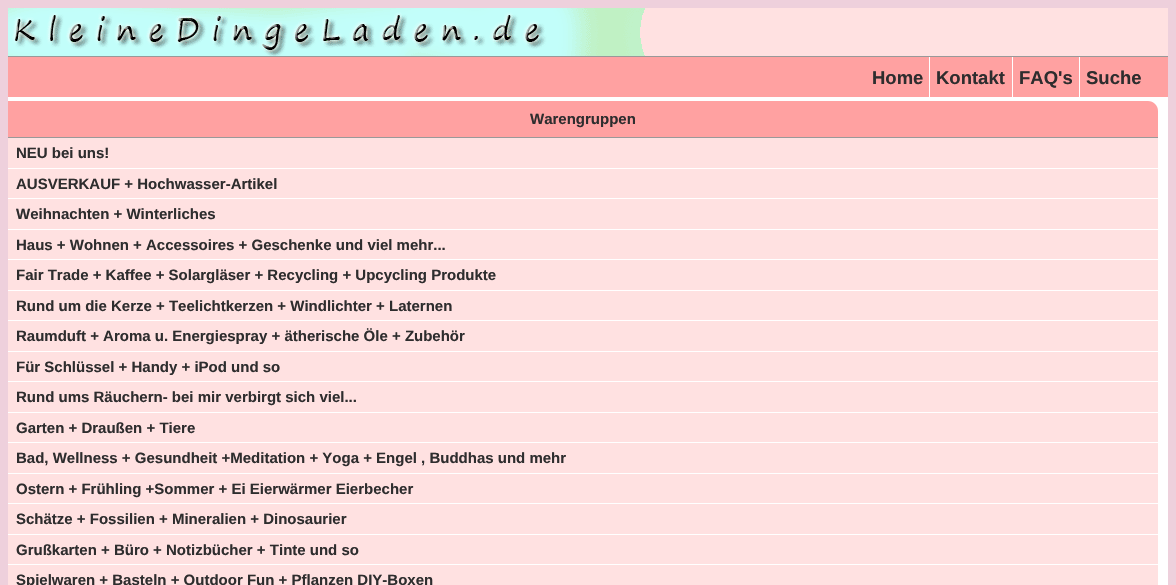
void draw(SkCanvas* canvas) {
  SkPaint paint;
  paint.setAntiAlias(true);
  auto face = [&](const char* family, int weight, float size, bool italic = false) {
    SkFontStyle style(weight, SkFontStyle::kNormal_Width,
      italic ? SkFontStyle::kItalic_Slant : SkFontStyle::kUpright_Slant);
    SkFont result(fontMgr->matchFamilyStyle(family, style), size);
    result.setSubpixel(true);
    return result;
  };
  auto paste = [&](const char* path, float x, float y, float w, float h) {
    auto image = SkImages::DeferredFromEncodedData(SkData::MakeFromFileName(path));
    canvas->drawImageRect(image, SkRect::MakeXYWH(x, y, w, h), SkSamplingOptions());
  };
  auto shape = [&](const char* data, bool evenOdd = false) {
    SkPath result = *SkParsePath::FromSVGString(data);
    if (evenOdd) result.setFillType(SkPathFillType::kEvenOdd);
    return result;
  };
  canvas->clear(0xffeed0dc);
  {
    const struct { float x, y, w, h; SkColor color; } items[] = {
      {8, 97, 1160, 488, 0xffffffff},
      {640, 8, 528, 48, 0xffffe1e1},
      {8, 56, 1160, 1, 0xff999999},
    };
    for (auto [x, y, w, h, color] : items) {
      paint.setColor(color);
      canvas->drawRect(SkRect::MakeXYWH(x, y, w, h), paint);
    }
  }
  paste("img/1.png", 8, 8, 637, 48);
  {
    const struct { float x, y, w, h; SkColor color; } items[] = {
      {8, 57, 1160, 40, 0xffffa1a1},
      {929, 57, 1, 40, 0xffffffff},
      {1012, 57, 1, 40, 0xffffffff},
      {1079, 57, 1, 40, 0xffffffff},
    };
    for (auto [x, y, w, h, color] : items) {
      paint.setColor(color);
      canvas->drawRect(SkRect::MakeXYWH(x, y, w, h), paint);
    }
  }
  paint.setColor(0xffffa1a1);
  canvas->drawPath(shape("M8 101H1148C1153.5 101 1158 105.5 1158 111V138H8Z"), paint);
  {
    const struct { float x, y, w, h; SkColor color; } items[] = {
      {8, 137, 1150, 1, 0xff999999},
      {8, 138, 1150, 30, 0xffffe1e1},
      {8, 169, 1150, 29, 0xffffe1e1},
      {8, 199, 1150, 30, 0xffffe1e1},
      {8, 230, 1150, 29, 0xffffe1e1},
      {8, 260, 1150, 30, 0xffffe1e1},
      {8, 291, 1150, 29, 0xffffe1e1},
      {8, 321, 1150, 30, 0xffffe1e1},
      {8, 352, 1150, 29, 0xffffe1e1},
      {8, 382, 1150, 30, 0xffffe1e1},
      {8, 413, 1150, 29, 0xffffe1e1},
      {8, 443, 1150, 30, 0xffffe1e1},
      {8, 474, 1150, 29, 0xffffe1e1},
      {8, 504, 1150, 30, 0xffffe1e1},
      {8, 535, 1150, 29, 0xffffe1e1},
      {8, 565, 1150, 20, 0xffffe1e1},
    };
    for (auto [x, y, w, h, color] : items) {
      paint.setColor(color);
      canvas->drawRect(SkRect::MakeXYWH(x, y, w, h), paint);
    }
  }
  auto f0 = face("Liberation Sans", 700, 18.5f);
  paint.setColor(0xff2e2d2e);
  {
    const struct { const char* s; float x, y; } items[] = {
      {"Home", 872, 84},
      {"Kontakt", 936, 84},
      {"FAQ's", 1019, 84},
      {"Suche", 1086, 84},
    };
    for (auto [s, x, y] : items) {
      canvas->drawString(s, x, y, f0, paint);
    }
  }
  auto f1 = face("Liberation Sans", 700, 15);
  {
    const struct { const char* s; float x, y; } items[] = {
      {"Warengruppen", 530, 124},
      {"NEU bei uns!", 16, 158},
      {"AUSVERKAUF + Hochwasser-Artikel", 16, 189},
      {"Weihnachten + Winterliches", 16, 219},
      {"Haus + Wohnen + Accessoires + Geschenke und viel mehr...", 16, 250},
      {"Fair Trade + Kaffee + Solargläser + Recycling + Upcycling Produkte", 16, 280},
      {"Rund um die Kerze + Teelichtkerzen + Windlichter + Laternen", 16, 311},
      {"Raumduft + Aroma u. Energiespray + ätherische Öle + Zubehör", 16, 341},
      {"Für Schlüssel + Handy + iPod und so", 16, 372},
      {"Rund ums Räuchern- bei mir verbirgt sich viel...", 16, 402},
      {"Garten + Draußen + Tiere", 16, 433},
      {"Bad, Wellness + Gesundheit +Meditation + Yoga + Engel , Buddhas und mehr", 16, 463},
      {"Ostern + Frühling +Sommer + Ei Eierwärmer Eierbecher", 16, 494},
      {"Schätze + Fossilien + Mineralien + Dinosaurier", 16, 524},
      {"Grußkarten + Büro + Notizbücher + Tinte und so", 16, 555},
      {"Spielwaren + Basteln + Outdoor Fun + Pflanzen DIY-Boxen", 16, 585},
    };
    for (auto [s, x, y] : items) {
      canvas->drawString(s, x, y, f1, paint);
    }
  }
}
